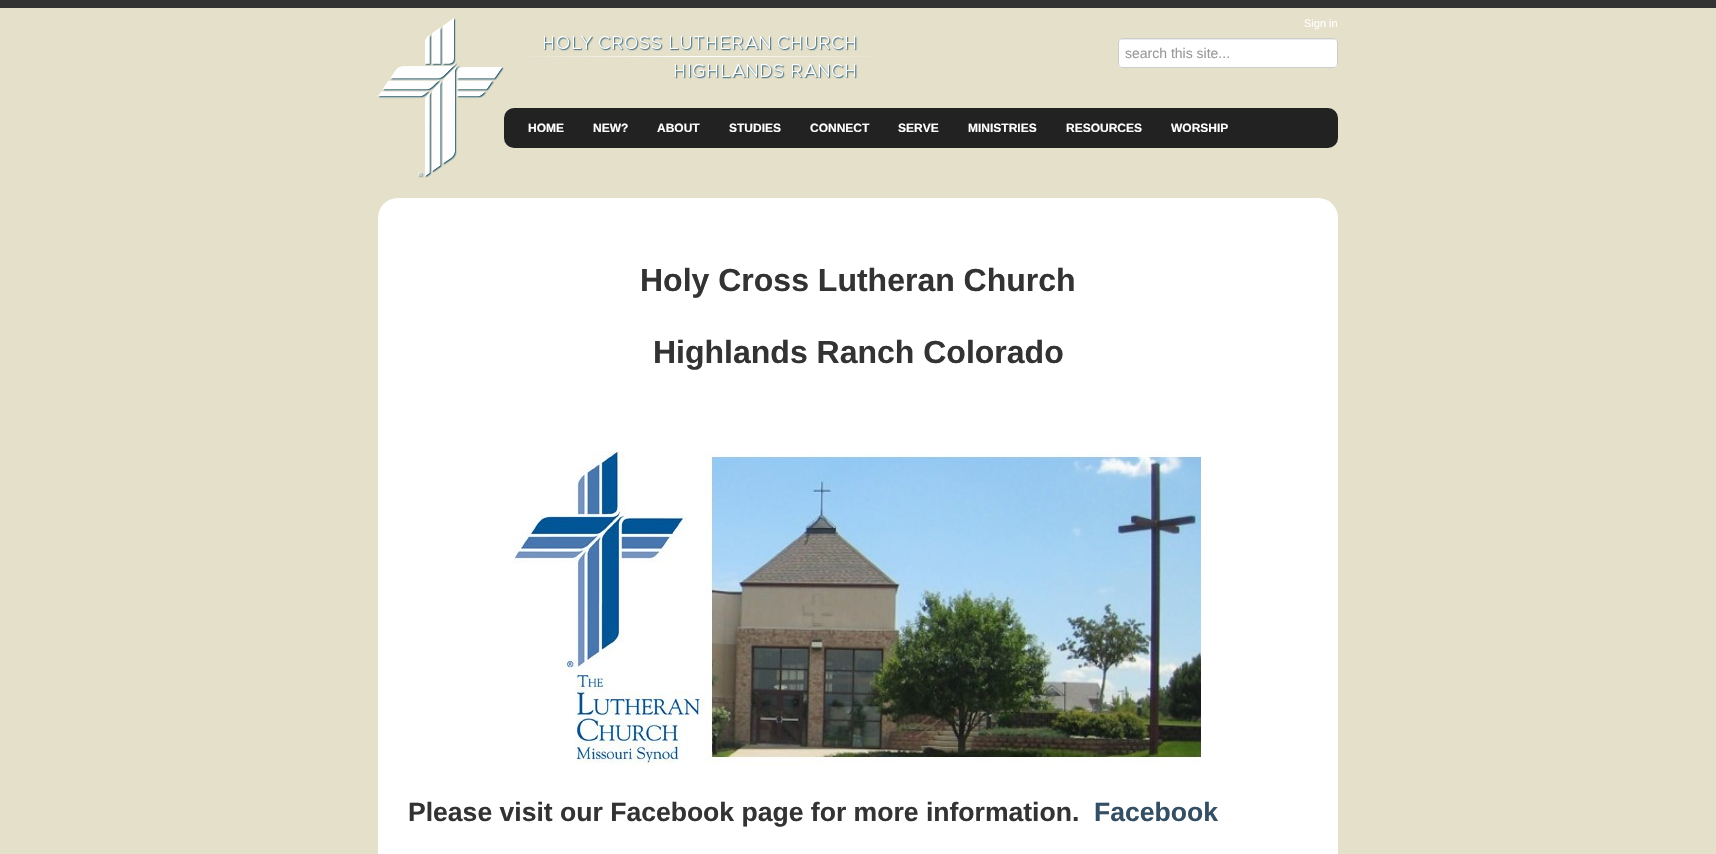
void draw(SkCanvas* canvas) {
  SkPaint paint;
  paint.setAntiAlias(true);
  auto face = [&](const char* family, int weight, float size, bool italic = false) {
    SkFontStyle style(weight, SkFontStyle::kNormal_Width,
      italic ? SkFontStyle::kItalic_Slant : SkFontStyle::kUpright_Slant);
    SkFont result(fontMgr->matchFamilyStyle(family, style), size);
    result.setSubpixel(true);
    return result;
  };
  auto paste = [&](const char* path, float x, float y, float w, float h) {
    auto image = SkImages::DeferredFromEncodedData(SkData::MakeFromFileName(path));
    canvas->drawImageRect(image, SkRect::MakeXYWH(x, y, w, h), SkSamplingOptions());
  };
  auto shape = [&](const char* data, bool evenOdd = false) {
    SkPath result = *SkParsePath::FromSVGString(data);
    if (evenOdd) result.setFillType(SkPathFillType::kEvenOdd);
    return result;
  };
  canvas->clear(0xffe5e0ca);
  paint.setColor(0xff333333);
  canvas->drawRect(SkRect::MakeXYWH(0, 0, 1716, 8), paint);
  paste("img/1.png", 378, 18, 126, 160);
  paste("img/2.png", 526, 36, 347, 43);
  paint.setColor(0xffffffff);
  canvas->drawRoundRect(SkRect::MakeXYWH(1118, 38, 220, 30), 4, 4, paint);
  paint.setColor(0xffececec);
  canvas->drawPath(shape("M1122 40H1334C1336 40 1337 41 1337 43V42C1337 40 1336 39 1334 39H1122C1120 39 1119 40 1119 42V43C1119 41 1120 40 1122 40Z"), paint);
  paint.setStroke(true);
  paint.setStrokeWidth(1);
  paint.setColor(0xffcccccc);
  canvas->drawRoundRect(SkRect::MakeXYWH(1118.5f, 38.5f, 219, 29), 3.5f, 3.5f, paint);
  paint.setStroke(false);
  paint.setColor(0xff222222);
  canvas->drawRoundRect(SkRect::MakeXYWH(504, 108, 834, 40), 10, 10, paint);
  paint.setColor(0xffffffff);
  canvas->drawRoundRect(SkRect::MakeXYWH(378, 198, 960, 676), 20, 20, paint);
  paste("img/3.png", 513, 451, 689, 314);
  auto f0 = face("Liberation Sans", 400, 11);
  canvas->drawString("Sign in", 1304, 27, f0, paint);
  auto f1 = face("Liberation Sans", 400, 14);
  paint.setColor(0xff999999);
  canvas->drawString("search this site...", 1125, 58, f1, paint);
  auto f2 = face("Liberation Sans", 700, 12);
  paint.setColor(0xffffffff);
  {
    const struct { const char* s; float x, y; } items[] = {
      {"HOME", 528, 132},
      {"NEW?", 593, 132},
      {"ABOUT", 657, 132},
      {"STUDIES", 729, 132},
      {"CONNECT", 810, 132},
      {"SERVE", 898, 132},
      {"MINISTRIES", 968, 132},
      {"RESOURCES", 1066, 132},
      {"WORSHIP", 1171, 132},
    };
    for (auto [s, x, y] : items) {
      canvas->drawString(s, x, y, f2, paint);
    }
  }
  auto f3 = face("Liberation Sans", 700, 32);
  paint.setColor(0xff333333);
  canvas->drawString("Holy Cross Lutheran Church", 640, 291, f3, paint);
  canvas->drawString("Highlands Ranch Colorado", 653, 363, f3, paint);
  auto f4 = face("Liberation Sans", 700, 26.55f);
  canvas->drawString("Please visit our Facebook page for more information.", 408, 821, f4, paint);
  paint.setColor(0xff344f64);
  canvas->drawString("Facebook", 1094, 821, f4, paint);
}
